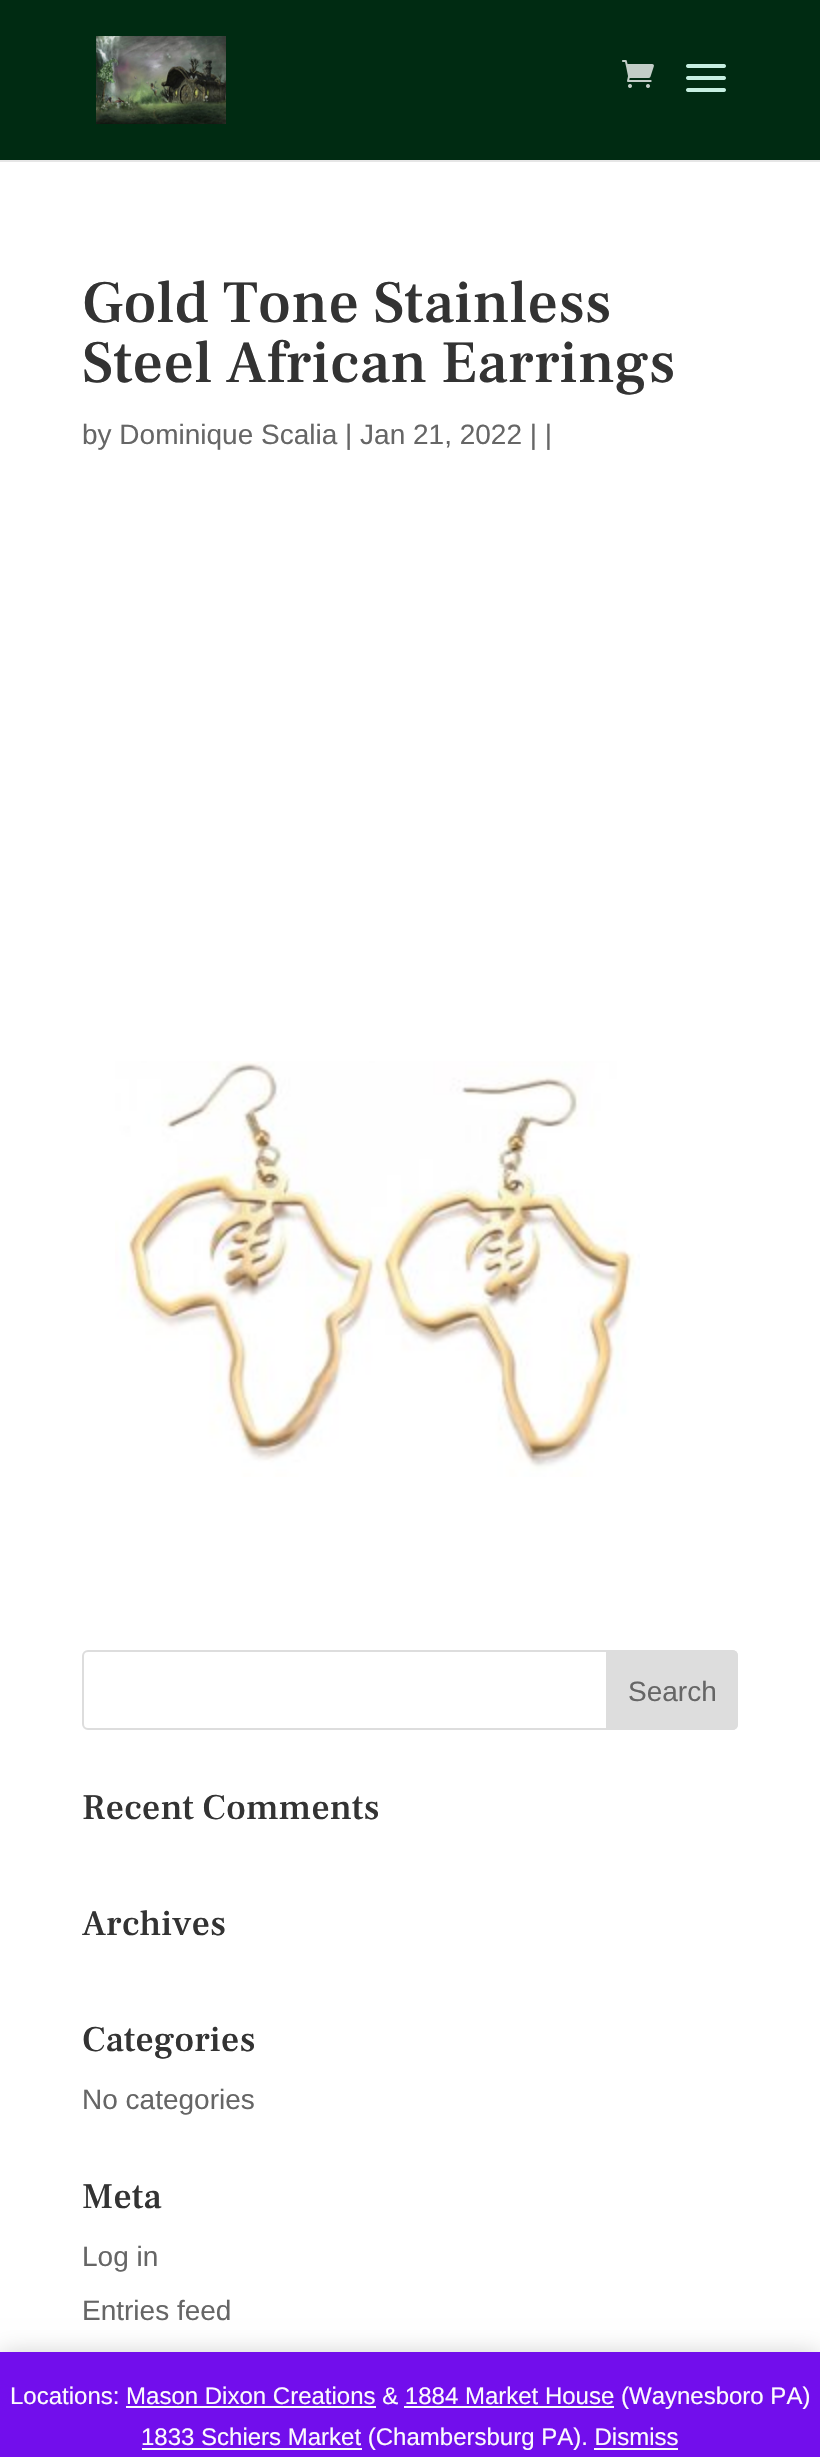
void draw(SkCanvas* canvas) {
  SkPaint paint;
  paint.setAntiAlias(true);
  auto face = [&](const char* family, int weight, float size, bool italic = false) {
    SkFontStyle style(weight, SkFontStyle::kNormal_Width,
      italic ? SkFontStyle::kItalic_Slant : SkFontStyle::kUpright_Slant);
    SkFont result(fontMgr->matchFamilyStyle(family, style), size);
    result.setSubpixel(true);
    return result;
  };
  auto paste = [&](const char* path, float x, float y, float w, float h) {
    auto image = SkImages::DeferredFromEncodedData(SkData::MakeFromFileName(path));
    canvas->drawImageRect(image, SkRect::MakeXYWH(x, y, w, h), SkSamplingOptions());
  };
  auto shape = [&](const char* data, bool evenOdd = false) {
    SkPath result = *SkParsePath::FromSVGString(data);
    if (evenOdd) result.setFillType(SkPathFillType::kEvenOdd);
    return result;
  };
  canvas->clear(0xffffffff);
  paint.setColor(0xffe6e6e6);
  canvas->drawRect(SkRect::MakeXYWH(0, 160, 820, 2), paint);
  paint.setColor(0xff002b12);
  canvas->drawRect(SkRect::MakeXYWH(0, 0, 820, 160), paint);
  paste("img/1.png", 96, 36, 130, 88);
  paste("img/2.png", 622, 60, 32, 28);
  paste("img/3.png", 686, 64, 40, 28);
  paste("img/4.png", 115, 1061, 525, 416);
  paint.setStroke(true);
  paint.setStrokeWidth(2);
  paint.setColor(0xffdddddd);
  canvas->drawRoundRect(SkRect::MakeXYWH(83, 1651, 654, 78), 5, 5, paint);
  paint.setStroke(false);
  canvas->drawPath(shape("M607 1651H732C735 1651 737 1653 737 1656V1724C737 1727 735 1729 732 1729H607Z"), paint);
  paint.setStroke(true);
  canvas->drawPath(shape("M607 1651H732C735 1651 737 1653 737 1656V1724C737 1727 735 1729 732 1729H607Z"), paint);
  paint.setStroke(false);
  paint.setColor(0x33000000);
  paint.setMaskFilter(SkMaskFilter::MakeBlur(kNormal_SkBlurStyle, 12));
  canvas->drawRect(SkRect::MakeXYWH(0, 2354, 820, 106), paint);
  paint.setMaskFilter(nullptr);
  {
    const struct { float x, y, w, h; SkColor color; } items[] = {
      {0, 2352, 820, 105, 0xff720eec},
      {126, 2406, 250, 2, 0xfffcfbfe},
      {404, 2406, 210, 2, 0xfffcfbfe},
      {142, 2448, 220, 2, 0xfffcfbfe},
      {594, 2448, 84, 2, 0xfffcfbfe},
    };
    for (auto [x, y, w, h, color] : items) {
      paint.setColor(color);
      canvas->drawRect(SkRect::MakeXYWH(x, y, w, h), paint);
    }
  }
  auto f0 = face("Frank Ruhl Libre", 500, 60);
  paint.setColor(0xff333333);
  canvas->drawString("Gold Tone Stainless", 82, 322, f0, paint);
  canvas->drawString("Steel African Earrings", 82, 382, f0, paint);
  auto f1 = face("Liberation Sans", 400, 28);
  paint.setColor(0xff666666);
  canvas->drawString("by Dominique Scalia | Jan 21, 2022 | |", 82, 444, f1, paint);
  canvas->drawString("Search", 628, 1701, f1, paint);
  auto f2 = face("Frank Ruhl Libre", 500, 36);
  paint.setColor(0xff333333);
  {
    const struct { const char* s; float x, y; } items[] = {
      {"Recent Comments", 82, 1819},
      {"Archives", 82, 1935},
      {"Categories", 82, 2051},
    };
    for (auto [s, x, y] : items) {
      canvas->drawString(s, x, y, f2, paint);
    }
  }
  paint.setColor(0xff666666);
  canvas->drawString("No categories", 82, 2109, f1, paint);
  paint.setColor(0xff333333);
  canvas->drawString("Meta", 82, 2208, f2, paint);
  paint.setColor(0xff666666);
  canvas->drawString("Log in", 82, 2266, f1, paint);
  canvas->drawString("Entries feed", 82, 2320, f1, paint);
  auto f3 = face("Liberation Sans", 400, 24);
  paint.setColor(0xfffcfbfe);
  canvas->drawString("Locations: Mason Dixon Creations & 1884 Market House (Waynesboro PA)", 10, 2404, f3, paint);
  canvas->drawString("1833 Schiers Market (Chambersburg PA). Dismiss", 141, 2445, f3, paint);
}
